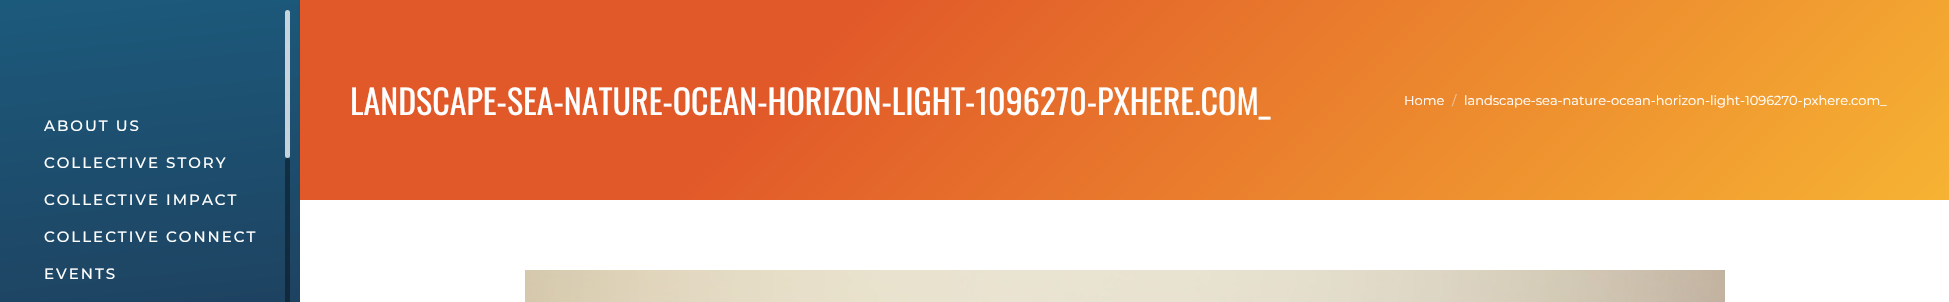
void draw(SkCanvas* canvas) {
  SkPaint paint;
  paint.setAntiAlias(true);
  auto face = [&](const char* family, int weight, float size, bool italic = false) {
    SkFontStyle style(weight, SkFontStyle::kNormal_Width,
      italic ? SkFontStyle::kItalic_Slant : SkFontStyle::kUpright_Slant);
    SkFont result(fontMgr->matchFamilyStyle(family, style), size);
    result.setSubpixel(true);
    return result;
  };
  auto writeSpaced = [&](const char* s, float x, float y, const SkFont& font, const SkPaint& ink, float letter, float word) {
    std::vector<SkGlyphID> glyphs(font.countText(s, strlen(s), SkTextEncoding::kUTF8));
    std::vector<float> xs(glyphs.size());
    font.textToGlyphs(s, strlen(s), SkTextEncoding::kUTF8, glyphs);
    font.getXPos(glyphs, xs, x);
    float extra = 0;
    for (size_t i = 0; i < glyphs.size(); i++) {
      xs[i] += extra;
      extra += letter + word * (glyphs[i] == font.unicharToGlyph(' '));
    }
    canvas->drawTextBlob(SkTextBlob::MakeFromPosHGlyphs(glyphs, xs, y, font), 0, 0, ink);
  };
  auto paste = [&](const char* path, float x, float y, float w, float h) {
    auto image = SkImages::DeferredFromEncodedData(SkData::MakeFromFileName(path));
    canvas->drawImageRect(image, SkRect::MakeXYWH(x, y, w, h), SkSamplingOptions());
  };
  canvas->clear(0xffffffff);
  {
    const SkColor colors[] = {0xffe15829, 0xfff6b333};
    const float stops[] = {0.3f, 1};
    const SkPoint ends[] = {{662, -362}, {1587, 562}};
    paint.setShader(SkGradientShader::MakeLinear(ends, colors, stops, 2, SkTileMode::kClamp));
    paint.setAlpha(255);
  }
  canvas->drawRect(SkRect::MakeXYWH(300, 0, 1649, 200), paint);
  {
    const SkColor colors[] = {0xff007da4, 0xff3ebfac, 0xff221c35, 0xff1c5a7c};
    const float stops[] = {0, 0.33f, 0.67f, 1};
    const SkPoint ends[] = {{1335, 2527}, {1057, -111}};
    paint.setShader(SkGradientShader::MakeLinear(ends, colors, stops, 4, SkTileMode::kClamp));
    paint.setAlpha(255);
  }
  canvas->drawRect(SkRect::MakeXYWH(0, 0, 299, 302), paint);
  {
    const SkColor colors[] = {0xff067598, 0xff3db09f, 0xff241f35, 0xff1f5674};
    const float stops[] = {0, 0.33f, 0.67f, 1};
    const SkPoint ends[] = {{1335, 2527}, {1057, -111}};
    paint.setShader(SkGradientShader::MakeLinear(ends, colors, stops, 4, SkTileMode::kClamp));
    paint.setAlpha(255);
  }
  canvas->drawRect(SkRect::MakeXYWH(299, 0, 1, 302), paint);
  paint.setShader(nullptr);
  paint.setColor(0xbfffffff);
  canvas->drawRoundRect(SkRect::MakeXYWH(285, 10, 5, 148), 2.5f, 2.5f, paint);
  paint.setColor(0x66000000);
  canvas->drawRoundRect(SkRect::MakeXYWH(285, 158, 5, 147), 2.5f, 2.5f, paint);
  paste("img/1.png", 525, 270, 1200, 32);
  auto f0 = face("Oswald", 400, 34);
  paint.setColor(0xffffffff);
  canvas->drawString("LANDSCAPE-SEA-NATURE-OCEAN-HORIZON-LIGHT-1096270-PXHERE.COM_", 350, 115, f0, paint);
  auto f1 = face("Montserrat", 400, 13);
  canvas->drawString("Home", 1404, 105, f1, paint);
  paint.setColor(0xfff6c497);
  canvas->drawString("/", 1452, 105, f1, paint);
  paint.setColor(0xffffffff);
  canvas->drawString("landscape-sea-nature-ocean-horizon-light-1096270-pxhere.com_", 1464, 105, f1, paint);
  auto f2 = face("Montserrat", 500, 15);
  {
    const struct { const char* s; float x, y; } items[] = {
      {"ABOUT US", 44, 131},
      {"COLLECTIVE STORY", 44, 168},
      {"COLLECTIVE IMPACT", 44, 205},
      {"COLLECTIVE CONNECT", 44, 242},
      {"EVENTS", 44, 279},
    };
    for (auto [s, x, y] : items) {
      writeSpaced(s, x, y, f2, paint, 2, 0);
    }
  }
}
